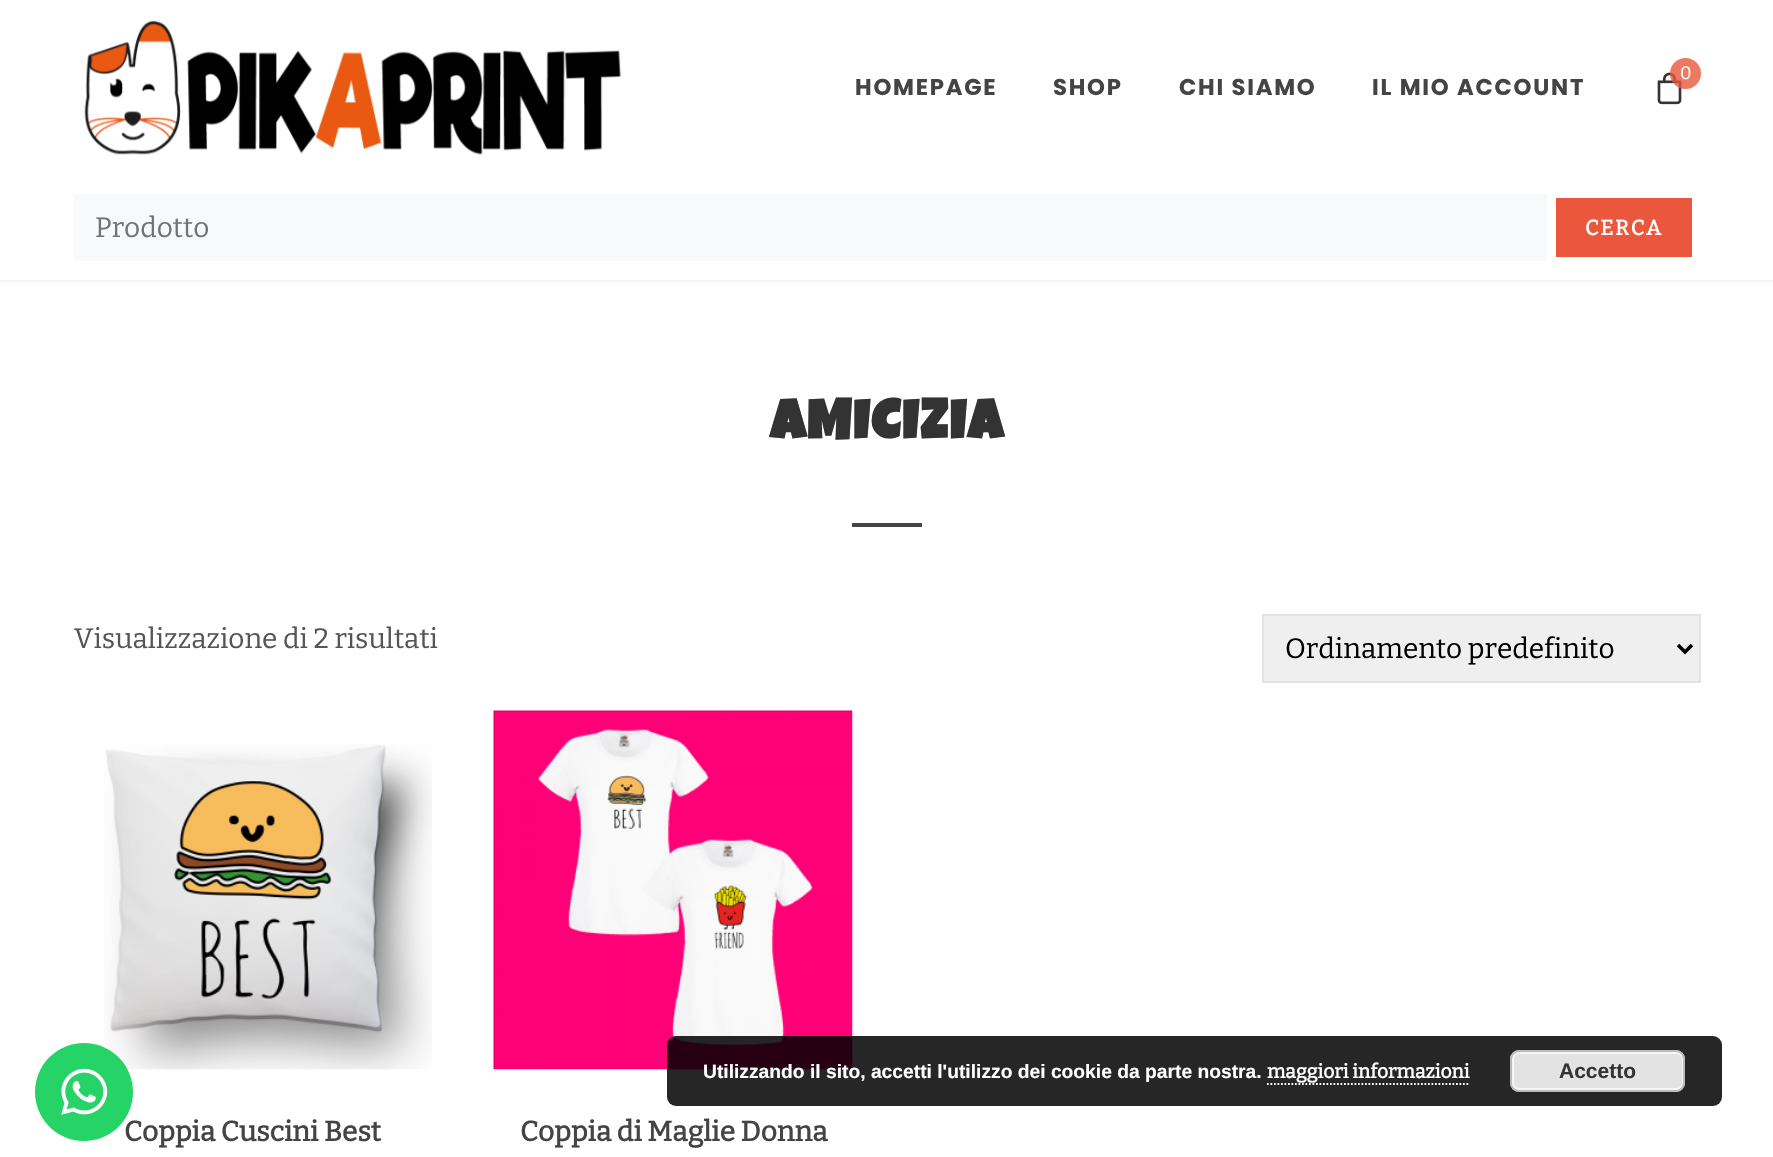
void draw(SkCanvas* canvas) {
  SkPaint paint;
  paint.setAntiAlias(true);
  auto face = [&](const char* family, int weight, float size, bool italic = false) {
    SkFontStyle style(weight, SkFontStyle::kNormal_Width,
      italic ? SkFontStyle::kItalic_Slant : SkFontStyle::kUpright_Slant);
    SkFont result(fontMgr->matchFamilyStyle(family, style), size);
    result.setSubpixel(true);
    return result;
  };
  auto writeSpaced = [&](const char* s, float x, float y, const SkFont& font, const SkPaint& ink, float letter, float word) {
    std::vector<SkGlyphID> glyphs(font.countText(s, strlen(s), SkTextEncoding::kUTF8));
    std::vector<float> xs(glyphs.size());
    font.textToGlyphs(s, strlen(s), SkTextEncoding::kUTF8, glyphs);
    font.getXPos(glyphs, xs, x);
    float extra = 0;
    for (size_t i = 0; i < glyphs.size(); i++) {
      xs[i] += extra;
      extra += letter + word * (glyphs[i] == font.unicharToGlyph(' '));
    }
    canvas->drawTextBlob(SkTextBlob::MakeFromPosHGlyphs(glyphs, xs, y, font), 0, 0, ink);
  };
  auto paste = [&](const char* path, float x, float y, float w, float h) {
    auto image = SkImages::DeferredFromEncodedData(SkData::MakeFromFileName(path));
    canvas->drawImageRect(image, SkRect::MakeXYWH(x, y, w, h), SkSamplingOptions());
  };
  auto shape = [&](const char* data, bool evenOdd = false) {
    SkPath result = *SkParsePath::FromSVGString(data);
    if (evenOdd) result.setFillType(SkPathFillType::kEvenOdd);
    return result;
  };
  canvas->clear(0xffffffff);
  paint.setColor(0xfff5f5f5);
  canvas->drawRect(SkRect::MakeXYWH(0, 280, 1773, 2), paint);
  paste("img/1.png", 84, 20, 538, 135);
  paste("img/2.png", 1657, 72, 25, 33);
  paint.setColor(0xccea573c);
  canvas->drawCircle(1685.5f, 73.5f, 15.5f, paint);
  {
    const struct { float x, y, w, h; SkColor color; } items[] = {
      {74, 194, 1473, 67, 0xfff8f9fa},
      {1556, 198, 136, 59, 0xffea573c},
      {852, 523, 70, 4, 0xff444444},
    };
    for (auto [x, y, w, h, color] : items) {
      paint.setColor(color);
      canvas->drawRect(SkRect::MakeXYWH(x, y, w, h), paint);
    }
  }
  paint.setColor(0xffefefef);
  canvas->drawRect(SkRect::MakeXYWH(1263, 615, 437, 67), paint);
  paint.setStroke(true);
  paint.setStrokeWidth(2);
  paint.setColor(0xffe3e3e3);
  canvas->drawRect(SkRect::MakeXYWH(1263, 615, 437, 67), paint);
  paint.setStrokeWidth(3.5f);
  paint.setColor(0xff000000);
  canvas->drawPath(shape("M1678 645L1685 652L1692 645"), paint);
  paste("img/3.png", 104, 744, 328, 326);
  paste("img/4.png", 493, 710, 360, 360);
  paint.setStroke(false);
  paint.setColor(0xd9000000);
  canvas->drawRoundRect(SkRect::MakeXYWH(667, 1036, 1055, 70), 9, 9, paint);
  paint.setStroke(true);
  paint.setStrokeWidth(1.8f);
  paint.setColor(0xffffffff);
  paint.setPathEffect(SkDashPathEffect::Make({{1.75f, 1.75f}}, 0));
  canvas->drawPath(shape("M1267 1084H1470"), paint);
  paint.setPathEffect(nullptr);
  paint.setStroke(false);
  paint.setColor(0xffe3e3e3);
  canvas->drawRoundRect(SkRect::MakeXYWH(1510, 1050, 175, 42), 9, 9, paint);
  paint.setStroke(true);
  paint.setStrokeWidth(2);
  paint.setColor(0xfff6f6f6);
  canvas->drawRoundRect(SkRect::MakeXYWH(1513, 1053, 170, 36), 6, 6, paint);
  paint.setColor(0xffbbbbbb);
  canvas->drawRoundRect(SkRect::MakeXYWH(1511, 1051, 173, 40), 8, 8, paint);
  auto f0 = face("Bitter", 400, 18);
  paint.setStroke(false);
  paint.setColor(0xffffffff);
  canvas->drawString("0", 1680, 79, f0, paint);
  auto f1 = face("Poppins", 700, 22.75f);
  paint.setColor(0xff444444);
  {
    const struct { const char* s; float x, y; } items[] = {
      {"HOMEPAGE", 855, 95},
      {"SHOP", 1053, 95},
      {"CHI SIAMO", 1179, 95},
      {"IL MIO ACCOUNT", 1372, 95},
    };
    for (auto [s, x, y] : items) {
      writeSpaced(s, x, y, f1, paint, 1.75f, 0);
    }
  }
  auto f2 = face("Bitter", 400, 28);
  paint.setColor(0xff6c757d);
  canvas->drawString("Prodotto", 95, 237, f2, paint);
  auto f3 = face("Bitter", 700, 21);
  paint.setColor(0xffffffff);
  writeSpaced("CERCA", 1585, 235, f3, paint, 1.75f, 0);
  auto f4 = face("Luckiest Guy", 700, 56);
  paint.setColor(0xff333333);
  writeSpaced("AMICIZIA", 770, 439, f4, paint, 1.75f, 0);
  paint.setColor(0xff555555);
  canvas->drawString("Visualizzazione di 2 risultati", 74, 648, f2, paint);
  paint.setColor(0xff000000);
  canvas->drawString("Ordinamento predefinito", 1285, 658, f2, paint);
  auto f5 = face("Bitter", 700, 28);
  paint.setColor(0xff444444);
  canvas->drawString("Coppia Cuscini Best", 124, 1141, f5, paint);
  canvas->drawString("Coppia di Maglie Donna", 520, 1141, f5, paint);
  paint.setColor(0xff25d366);
  canvas->drawCircle(84, 1092, 49, paint);
  paste("img/5.png", 61, 1068, 47, 47);
  auto f6 = face("Liberation Sans", 700, 19.25f);
  paint.setColor(0xffffffff);
  canvas->drawString("Utilizzando il sito, accetti l'utilizzo dei cookie da parte nostra.", 703, 1078, f6, paint);
  auto f7 = face("Bitter", 700, 19.25f);
  canvas->drawString("maggiori informazioni", 1267, 1078, f7, paint);
  auto f8 = face("Liberation Sans", 700, 21);
  paint.setColor(0xff333333);
  canvas->drawString("Accetto", 1559, 1078, f8, paint);
}
